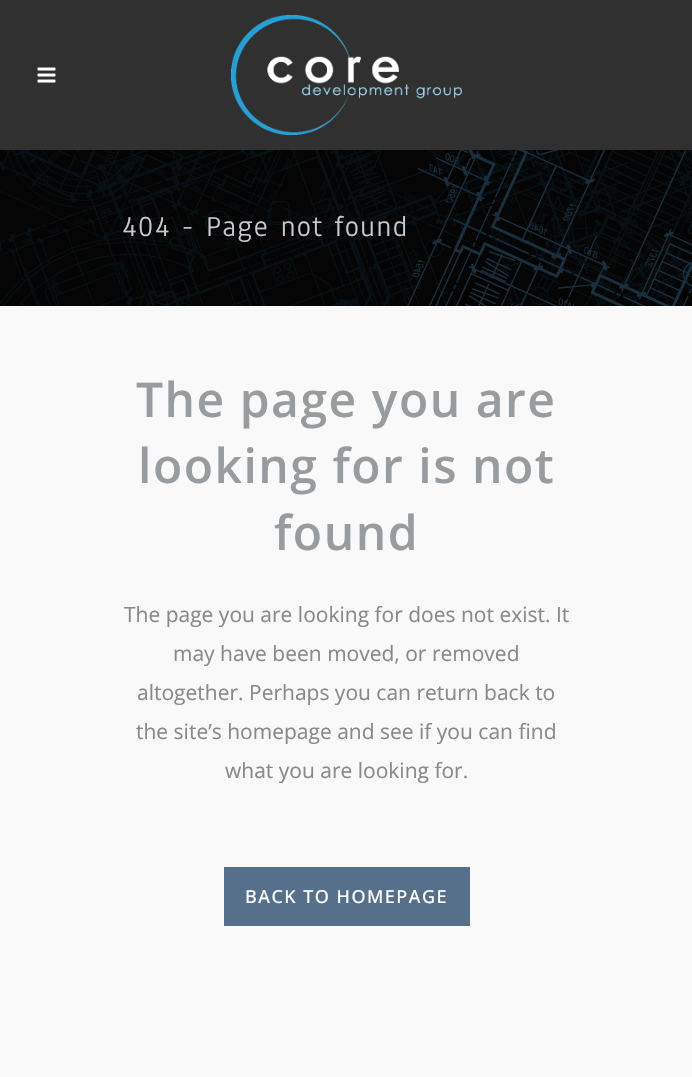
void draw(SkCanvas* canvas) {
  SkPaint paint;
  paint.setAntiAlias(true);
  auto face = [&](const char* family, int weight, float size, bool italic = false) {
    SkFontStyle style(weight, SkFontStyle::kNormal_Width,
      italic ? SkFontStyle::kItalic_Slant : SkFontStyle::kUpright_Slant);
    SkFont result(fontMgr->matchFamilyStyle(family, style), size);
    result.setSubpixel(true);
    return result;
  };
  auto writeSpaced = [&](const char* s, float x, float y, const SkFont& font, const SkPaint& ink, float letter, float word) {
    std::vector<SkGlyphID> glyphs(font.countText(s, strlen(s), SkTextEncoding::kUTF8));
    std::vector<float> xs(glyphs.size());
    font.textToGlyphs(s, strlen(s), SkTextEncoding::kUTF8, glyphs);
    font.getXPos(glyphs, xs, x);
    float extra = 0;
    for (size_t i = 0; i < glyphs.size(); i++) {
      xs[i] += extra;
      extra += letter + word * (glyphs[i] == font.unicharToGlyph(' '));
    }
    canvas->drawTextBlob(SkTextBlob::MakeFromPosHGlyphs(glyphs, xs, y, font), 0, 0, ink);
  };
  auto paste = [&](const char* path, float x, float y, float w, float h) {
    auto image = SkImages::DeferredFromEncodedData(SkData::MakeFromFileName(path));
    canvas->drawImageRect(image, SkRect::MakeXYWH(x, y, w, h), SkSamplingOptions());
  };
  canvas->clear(0xfff9f9f9);
  paint.setColor(0xff303030);
  canvas->drawRect(SkRect::MakeXYWH(0, 0, 692, 150), paint);
  paste("img/1.png", 37, 67, 19, 16);
  paste("img/2.png", 231, 15, 231, 120);
  paste("img/3.png", 0, 150, 692, 156);
  paint.setColor(0xff56708c);
  canvas->drawRect(SkRect::MakeXYWH(224, 867, 246, 59), paint);
  auto f0 = face("Anaheim", 400, 30);
  paint.setColor(0xffc9cace);
  writeSpaced("404 - Page not found", 122, 236, f0, paint, 1.5f, 0);
  auto f1 = face("Open Sans", 600, 48);
  paint.setColor(0xff999c9e);
  {
    const struct { const char* s; float x, y; } items[] = {
      {"The page you are", 136, 417},
      {"looking for is not", 138, 483},
      {"found", 274, 550},
    };
    for (auto [s, x, y] : items) {
      writeSpaced(s, x, y, f1, paint, 1.5f, 0);
    }
  }
  auto f2 = face("Open Sans", 400, 21);
  paint.setColor(0xff898989);
  {
    const struct { const char* s; float x, y; } items[] = {
      {"The page you are looking for does not exist. It", 124, 622},
      {"may have been moved, or removed", 173, 661},
      {"altogether. Perhaps you can return back to", 137, 700},
      {"the site’s homepage and see if you can find", 136, 739},
      {"what you are looking for.", 225, 778},
    };
    for (auto [s, x, y] : items) {
      canvas->drawString(s, x, y, f2, paint);
    }
  }
  auto f3 = face("Open Sans", 500, 18);
  paint.setColor(0xffffffff);
  writeSpaced("BACK TO HOMEPAGE", 245, 903, f3, paint, 1.5f, 0);
}
